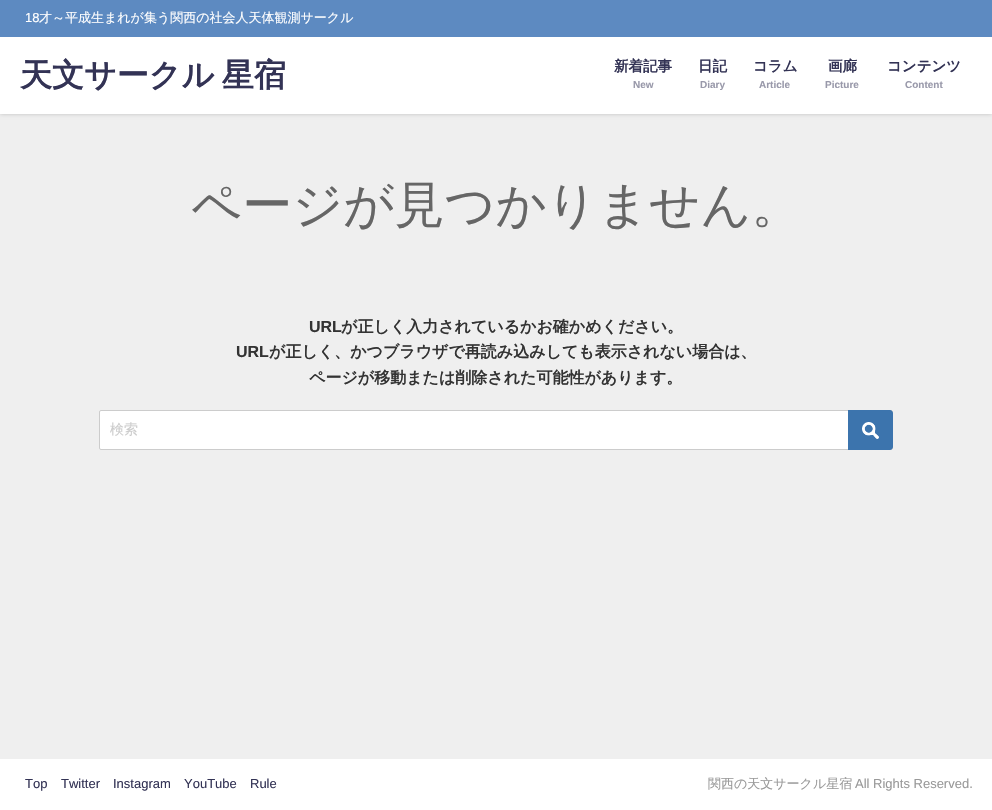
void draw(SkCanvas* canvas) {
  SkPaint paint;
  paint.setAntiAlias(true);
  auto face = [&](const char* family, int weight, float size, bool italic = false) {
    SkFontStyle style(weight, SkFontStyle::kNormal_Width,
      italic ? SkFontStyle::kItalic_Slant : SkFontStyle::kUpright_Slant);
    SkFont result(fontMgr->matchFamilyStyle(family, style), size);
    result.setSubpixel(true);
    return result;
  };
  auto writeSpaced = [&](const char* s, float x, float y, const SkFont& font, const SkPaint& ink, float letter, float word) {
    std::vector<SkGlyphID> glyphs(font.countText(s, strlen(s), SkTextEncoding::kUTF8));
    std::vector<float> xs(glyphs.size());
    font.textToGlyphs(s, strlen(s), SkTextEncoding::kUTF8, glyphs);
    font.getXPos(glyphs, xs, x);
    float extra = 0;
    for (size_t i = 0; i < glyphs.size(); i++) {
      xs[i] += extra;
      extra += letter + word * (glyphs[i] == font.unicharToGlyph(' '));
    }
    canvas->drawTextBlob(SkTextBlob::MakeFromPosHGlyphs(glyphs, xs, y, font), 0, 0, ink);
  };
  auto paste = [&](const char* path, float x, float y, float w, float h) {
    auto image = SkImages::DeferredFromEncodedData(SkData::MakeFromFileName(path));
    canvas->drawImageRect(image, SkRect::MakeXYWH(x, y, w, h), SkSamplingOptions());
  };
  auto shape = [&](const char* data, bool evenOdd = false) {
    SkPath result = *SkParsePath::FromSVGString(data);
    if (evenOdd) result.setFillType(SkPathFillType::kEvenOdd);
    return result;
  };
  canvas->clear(0xffefefef);
  paint.setColor(0x33000000);
  paint.setMaskFilter(SkMaskFilter::MakeBlur(kNormal_SkBlurStyle, 2));
  canvas->drawRect(SkRect::MakeXYWH(0, 0, 992, 114), paint);
  paint.setMaskFilter(nullptr);
  paint.setColor(0xffffffff);
  canvas->drawRect(SkRect::MakeXYWH(0, 37, 992, 77), paint);
  paint.setColor(0xff5d8ac1);
  canvas->drawRect(SkRect::MakeXYWH(0, 0, 992, 37), paint);
  paint.setColor(0xffffffff);
  canvas->drawRoundRect(SkRect::MakeXYWH(99.5f, 410.5f, 793, 39), 1.5f, 1.5f, paint);
  paint.setStroke(true);
  paint.setStrokeWidth(1);
  paint.setColor(0xffcccccc);
  canvas->drawRoundRect(SkRect::MakeXYWH(99.5f, 410.5f, 793, 39), 1.5f, 1.5f, paint);
  paint.setStroke(false);
  paint.setColor(0xff3c74ad);
  canvas->drawPath(shape("M848 410H890C891.5 410 893 411.5 893 413V447C893 448.5 891.5 450 890 450H848Z"), paint);
  paste("img/1.png", 862, 422, 17, 17);
  paint.setColor(0xffffffff);
  canvas->drawRect(SkRect::MakeXYWH(0, 759, 992, 51), paint);
  auto f0 = face("Liberation Sans", 400, 13);
  canvas->drawString("18", 25, 22, f0, paint);
  auto f1 = face("WenQuanYi Zen Hei", 500, 13);
  canvas->drawString("才～平成生まれが集う関西の社会人天体観測サークル", 39, 22, f1, paint);
  auto f2 = face("WenQuanYi Zen Hei", 700, 32);
  paint.setColor(0xff333355);
  writeSpaced("天文サークル 星宿", 20, 86, f2, paint, 0, -2);
  auto f3 = face("WenQuanYi Zen Hei", 700, 14.5f);
  canvas->drawString("新着記事", 614, 71, f3, paint);
  auto f4 = face("Liberation Sans", 700, 10);
  paint.setColor(0xff9999aa);
  canvas->drawString("New", 633, 88, f4, paint);
  paint.setColor(0xff333355);
  canvas->drawString("日記", 698, 71, f3, paint);
  paint.setColor(0xff9999aa);
  canvas->drawString("Diary", 700, 88, f4, paint);
  paint.setColor(0xff333355);
  canvas->drawString("コラム", 753, 71, f3, paint);
  paint.setColor(0xff9999aa);
  canvas->drawString("Article", 759, 88, f4, paint);
  paint.setColor(0xff333355);
  canvas->drawString("画廊", 828, 71, f3, paint);
  paint.setColor(0xff9999aa);
  canvas->drawString("Picture", 825, 88, f4, paint);
  paint.setColor(0xff333355);
  canvas->drawString("コンテンツ", 887, 71, f3, paint);
  paint.setColor(0xff9999aa);
  canvas->drawString("Content", 905, 88, f4, paint);
  auto f5 = face("WenQuanYi Zen Hei", 500, 50);
  paint.setColor(0xff666666);
  canvas->drawString("ページが見つかりません。", 191, 222, f5, paint);
  auto f6 = face("Liberation Sans", 700, 16);
  paint.setColor(0xff333333);
  canvas->drawString("URL", 309, 332, f6, paint);
  auto f7 = face("WenQuanYi Zen Hei", 700, 16);
  canvas->drawString("が正しく入力されているかお確かめください。", 341, 332, f7, paint);
  canvas->drawString("URL", 236, 357, f6, paint);
  canvas->drawString("が正しく、かつブラウザで再読み込みしても表示されない場合は、", 269, 357, f7, paint);
  canvas->drawString("ページが移動または削除された可能性があります。", 309, 383, f7, paint);
  auto f8 = face("WenQuanYi Zen Hei", 500, 14);
  paint.setColor(0xffcccccc);
  canvas->drawString("検索", 110, 434, f8, paint);
  paint.setColor(0xff333355);
  {
    const struct { const char* s; float x, y; } items[] = {
      {"Top", 25, 788},
      {"Twitter", 61, 788},
      {"Instagram", 113, 788},
      {"YouTube", 184, 788},
      {"Rule", 250, 788},
    };
    for (auto [s, x, y] : items) {
      canvas->drawString(s, x, y, f0, paint);
    }
  }
  paint.setColor(0xff999999);
  canvas->drawString("関西の天文サークル星宿", 708, 788, f1, paint);
  canvas->drawString("All Rights Reserved.", 855, 788, f0, paint);
}
